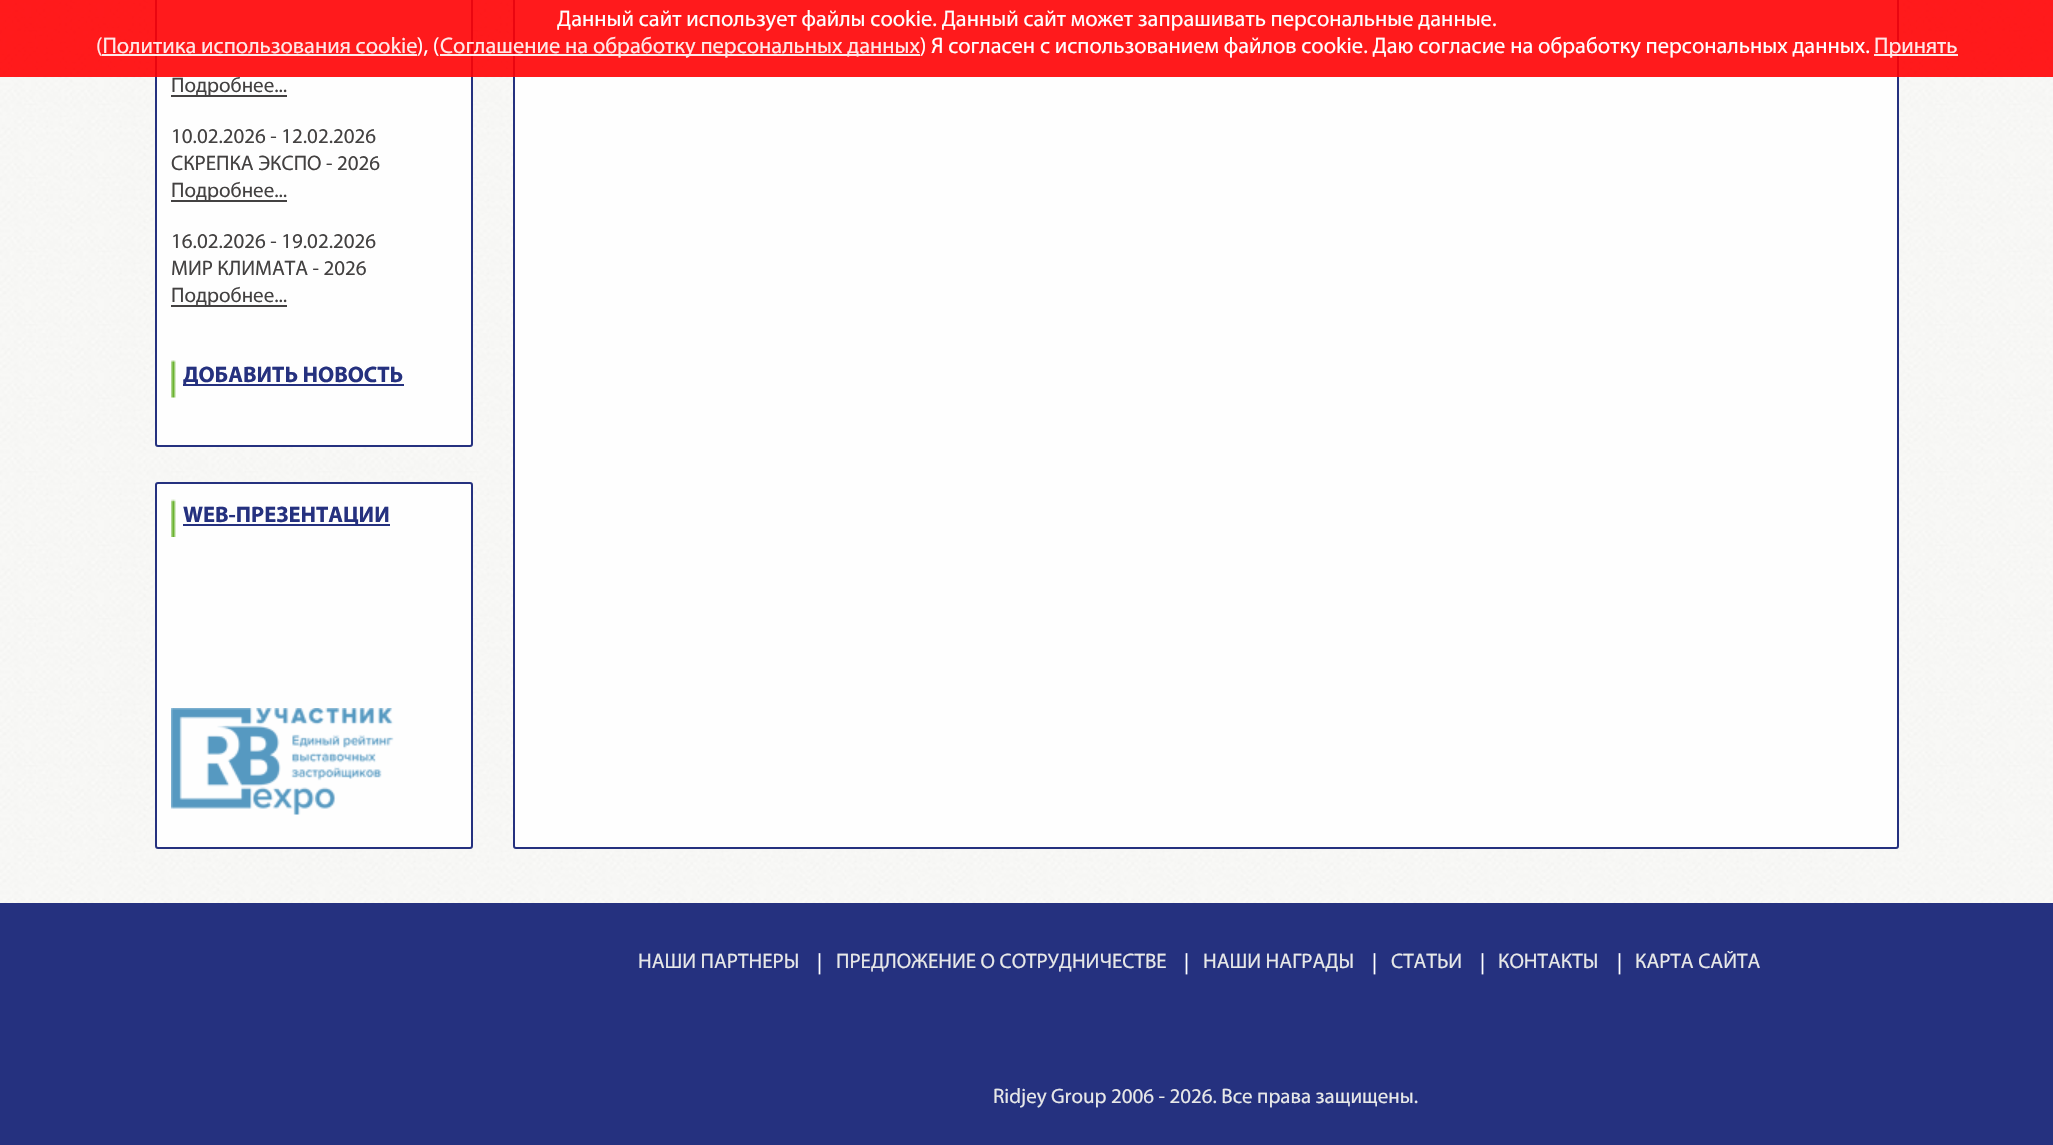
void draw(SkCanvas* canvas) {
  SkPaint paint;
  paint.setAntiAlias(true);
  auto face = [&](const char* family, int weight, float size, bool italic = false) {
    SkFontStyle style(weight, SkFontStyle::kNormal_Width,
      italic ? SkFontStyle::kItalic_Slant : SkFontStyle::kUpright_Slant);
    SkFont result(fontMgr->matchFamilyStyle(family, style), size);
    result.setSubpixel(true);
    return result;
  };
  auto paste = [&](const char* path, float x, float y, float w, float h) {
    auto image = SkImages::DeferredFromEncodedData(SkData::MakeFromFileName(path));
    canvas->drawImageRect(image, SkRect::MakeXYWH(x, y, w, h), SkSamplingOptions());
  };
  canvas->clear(0xffffffff);
  paste("img/1.png", 0, 0, 2053, 903);
  paint.setColor(0xfffefefe);
  canvas->drawRoundRect(SkRect::MakeXYWH(156, -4, 316, 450), 2, 2, paint);
  paint.setStroke(true);
  paint.setStrokeWidth(2);
  paint.setColor(0xff25317f);
  canvas->drawRoundRect(SkRect::MakeXYWH(156, -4, 316, 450), 2, 2, paint);
  paint.setStroke(false);
  {
    const struct { float x, y, w, h; SkColor color; } items[] = {
      {171, 95, 116, 2, 0xff434141},
      {171, 200, 116, 2, 0xff434141},
      {171, 305, 116, 2, 0xff434141},
    };
    for (auto [x, y, w, h, color] : items) {
      paint.setColor(color);
      canvas->drawRect(SkRect::MakeXYWH(x, y, w, h), paint);
    }
  }
  paste("img/2.png", 171, 360, 5, 38);
  paint.setColor(0xff25317f);
  canvas->drawRect(SkRect::MakeXYWH(183, 384, 221, 2), paint);
  paint.setColor(0xfffefefe);
  canvas->drawRoundRect(SkRect::MakeXYWH(156, 483, 316, 365), 2, 2, paint);
  paint.setStroke(true);
  paint.setColor(0xff25317f);
  canvas->drawRoundRect(SkRect::MakeXYWH(156, 483, 316, 365), 2, 2, paint);
  paste("img/3.png", 171, 499, 5, 38);
  paint.setStroke(false);
  canvas->drawRect(SkRect::MakeXYWH(183, 524, 207, 2), paint);
  paste("img/4.png", 171, 708, 223, 107);
  paint.setColor(0xfffefefe);
  canvas->drawRoundRect(SkRect::MakeXYWH(514, -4, 1384, 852), 2, 2, paint);
  paint.setStroke(true);
  paint.setColor(0xff25317f);
  canvas->drawRoundRect(SkRect::MakeXYWH(514, -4, 1384, 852), 2, 2, paint);
  paint.setStroke(false);
  canvas->drawRect(SkRect::MakeXYWH(0, 903, 2053, 242), paint);
  auto f0 = face("Myriad", 400, 21);
  paint.setColor(0xff434141);
  canvas->drawString("Подробнее...", 171, 92, f0, paint);
  paint.setColor(0xe6ff0103);
  canvas->drawRect(SkRect::MakeXYWH(0, 0, 2053, 77), paint);
  paint.setColor(0xe6ffffff);
  canvas->drawRect(SkRect::MakeXYWH(1874, 54, 84, 2), paint);
  auto f1 = face("Myriad", 400, 22.5f);
  paint.setColor(0xffffe8e8);
  canvas->drawString("Принять", 1874, 53, f1, paint);
  paint.setColor(0xffffffff);
  canvas->drawString(") Я согласен с использованием файлов cookie. Даю согласие на обработку персональных данных.", 920, 53, f1, paint);
  paint.setColor(0xe6ffffff);
  canvas->drawRect(SkRect::MakeXYWH(440, 54, 480, 2), paint);
  paint.setColor(0xffffe8e8);
  canvas->drawString("Соглашение на обработку персональных данных", 440, 53, f1, paint);
  paint.setColor(0xffffffff);
  canvas->drawString("), (", 417, 53, f1, paint);
  paint.setColor(0xffffe8e8);
  canvas->drawString("(Политика использования cookie", 96, 53, f1, paint);
  paint.setColor(0xe6ffffff);
  canvas->drawRect(SkRect::MakeXYWH(102, 54, 315, 2), paint);
  paint.setColor(0xffffffff);
  canvas->drawString("Данный сайт использует файлы cookie. Данный сайт может запрашивать персональные данные.", 557, 26, f1, paint);
  paint.setColor(0xff434141);
  {
    const struct { const char* s; float x, y; } items[] = {
      {"10.02.2026 - 12.02.2026", 171, 143},
      {"СКРЕПКА ЭКСПО - 2026", 171, 170},
      {"Подробнее...", 171, 197},
      {"16.02.2026 - 19.02.2026", 171, 248},
      {"МИР КЛИМАТА - 2026", 171, 275},
      {"Подробнее...", 171, 302},
    };
    for (auto [s, x, y] : items) {
      canvas->drawString(s, x, y, f0, paint);
    }
  }
  auto f2 = face("Myriad", 700, 22.5f);
  paint.setColor(0xff25317f);
  canvas->drawString("ДОБАВИТЬ НОВОСТЬ", 183, 382, f2, paint);
  canvas->drawString("WEB-ПРЕЗЕНТАЦИИ", 183, 522, f2, paint);
  paint.setColor(0xffe7e8e8);
  canvas->drawString("НАШИ ПАРТНЕРЫ", 638, 968, f0, paint);
  paint.setColor(0xffffffff);
  canvas->drawString("|", 817, 969, f0, paint);
  paint.setColor(0xffe7e8e8);
  canvas->drawString("ПРЕДЛОЖЕНИЕ О СОТРУДНИЧЕСТВЕ", 836, 968, f0, paint);
  paint.setColor(0xffffffff);
  canvas->drawString("|", 1184, 969, f0, paint);
  paint.setColor(0xffe7e8e8);
  canvas->drawString("НАШИ НАГРАДЫ", 1203, 968, f0, paint);
  paint.setColor(0xffffffff);
  canvas->drawString("|", 1372, 969, f0, paint);
  paint.setColor(0xffe7e8e8);
  canvas->drawString("СТАТЬИ", 1391, 968, f0, paint);
  paint.setColor(0xffffffff);
  canvas->drawString("|", 1480, 969, f0, paint);
  paint.setColor(0xffe7e8e8);
  canvas->drawString("КОНТАКТЫ", 1498, 968, f0, paint);
  paint.setColor(0xffffffff);
  canvas->drawString("|", 1617, 969, f0, paint);
  paint.setColor(0xffe7e8e8);
  canvas->drawString("КАРТА САЙТА", 1635, 968, f0, paint);
  canvas->drawString("Ridjey Group 2006 - 2026. Все права защищены.", 993, 1103, f0, paint);
}
